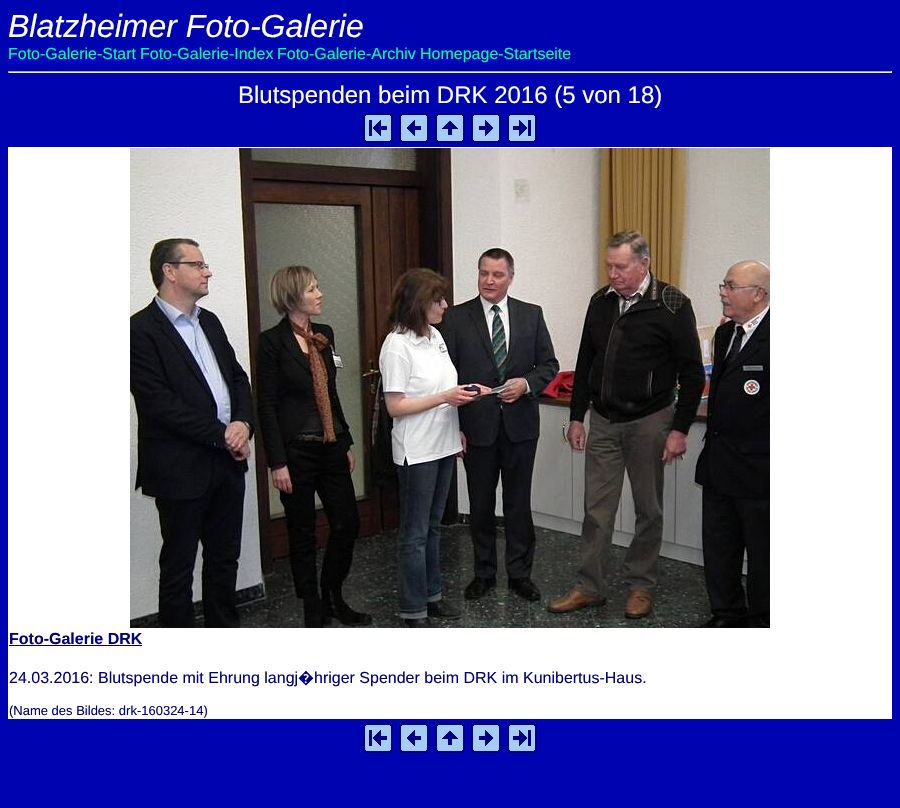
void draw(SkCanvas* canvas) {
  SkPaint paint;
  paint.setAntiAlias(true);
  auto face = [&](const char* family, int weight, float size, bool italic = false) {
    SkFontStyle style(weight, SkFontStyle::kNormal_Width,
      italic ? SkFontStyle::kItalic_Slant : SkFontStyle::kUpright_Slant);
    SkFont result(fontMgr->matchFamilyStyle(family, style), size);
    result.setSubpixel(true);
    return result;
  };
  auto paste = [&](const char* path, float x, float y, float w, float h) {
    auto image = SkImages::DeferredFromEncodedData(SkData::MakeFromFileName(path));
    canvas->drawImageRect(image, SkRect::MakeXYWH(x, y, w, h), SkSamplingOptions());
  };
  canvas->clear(0xff0004b0);
  {
    const struct { float x, y, w, h; SkColor color; } items[] = {
      {8, 60, 128, 1, 0xff0000ee},
      {140, 60, 133, 1, 0xff0000ee},
      {277, 60, 139, 1, 0xff0000ee},
      {420, 60, 151, 1, 0xff0000ee},
      {8, 71, 884, 1, 0xff9f9f9f},
      {891, 71, 1, 2, 0xffeeeeee},
      {8, 72, 884, 1, 0xffeeeeee},
      {8, 71, 1, 2, 0xff9f9f9f},
    };
    for (auto [x, y, w, h, color] : items) {
      paint.setColor(color);
      canvas->drawRect(SkRect::MakeXYWH(x, y, w, h), paint);
    }
  }
  paste("img/1.png", 363, 113, 30, 30);
  paste("img/2.png", 399, 113, 30, 30);
  paste("img/3.png", 435, 113, 30, 30);
  paste("img/4.png", 471, 113, 30, 30);
  paste("img/5.png", 507, 113, 30, 30);
  paint.setColor(0xffffffff);
  canvas->drawRect(SkRect::MakeXYWH(8, 147, 884, 572), paint);
  paste("img/6.png", 130, 148, 640, 480);
  paint.setColor(0xff000084);
  canvas->drawRect(SkRect::MakeXYWH(9, 645, 133, 1), paint);
  paste("img/1.png", 363, 723, 30, 30);
  paste("img/2.png", 399, 723, 30, 30);
  paste("img/3.png", 435, 723, 30, 30);
  paste("img/4.png", 471, 723, 30, 30);
  paste("img/5.png", 507, 723, 30, 30);
  auto f0 = face("Liberation Sans", 400, 32, true);
  paint.setColor(0xffffffff);
  canvas->drawString("Blatzheimer Foto-Galerie", 8, 37, f0, paint);
  auto f1 = face("Liberation Sans", 400, 16);
  paint.setColor(0xff00ff9c);
  {
    const struct { const char* s; float x, y; } items[] = {
      {"Foto-Galerie-Start", 8, 59},
      {"Foto-Galerie-Index", 140, 59},
      {"Foto-Galerie-Archiv", 277, 59},
      {"Homepage-Startseite", 420, 59},
    };
    for (auto [s, x, y] : items) {
      canvas->drawString(s, x, y, f1, paint);
    }
  }
  auto f2 = face("Liberation Sans", 400, 24);
  paint.setColor(0xffffffff);
  canvas->drawString("Blutspenden beim DRK 2016 (5 von 18)", 238, 103, f2, paint);
  auto f3 = face("Liberation Sans", 700, 16);
  paint.setColor(0xff000084);
  canvas->drawString("Foto-Galerie DRK", 9, 644, f3, paint);
  canvas->drawString("24.03.2016: Blutspende mit Ehrung langj", 9, 683, f1, paint);
  auto f4 = face("Noto Sans", 400, 16);
  canvas->drawString("�", 298, 683, f4, paint);
  canvas->drawString("hriger Spender beim DRK im Kunibertus-Haus.", 314, 683, f1, paint);
  auto f5 = face("Liberation Sans", 400, 13);
  canvas->drawString("(Name des Bildes: drk-160324-14)", 9, 715, f5, paint);
}
